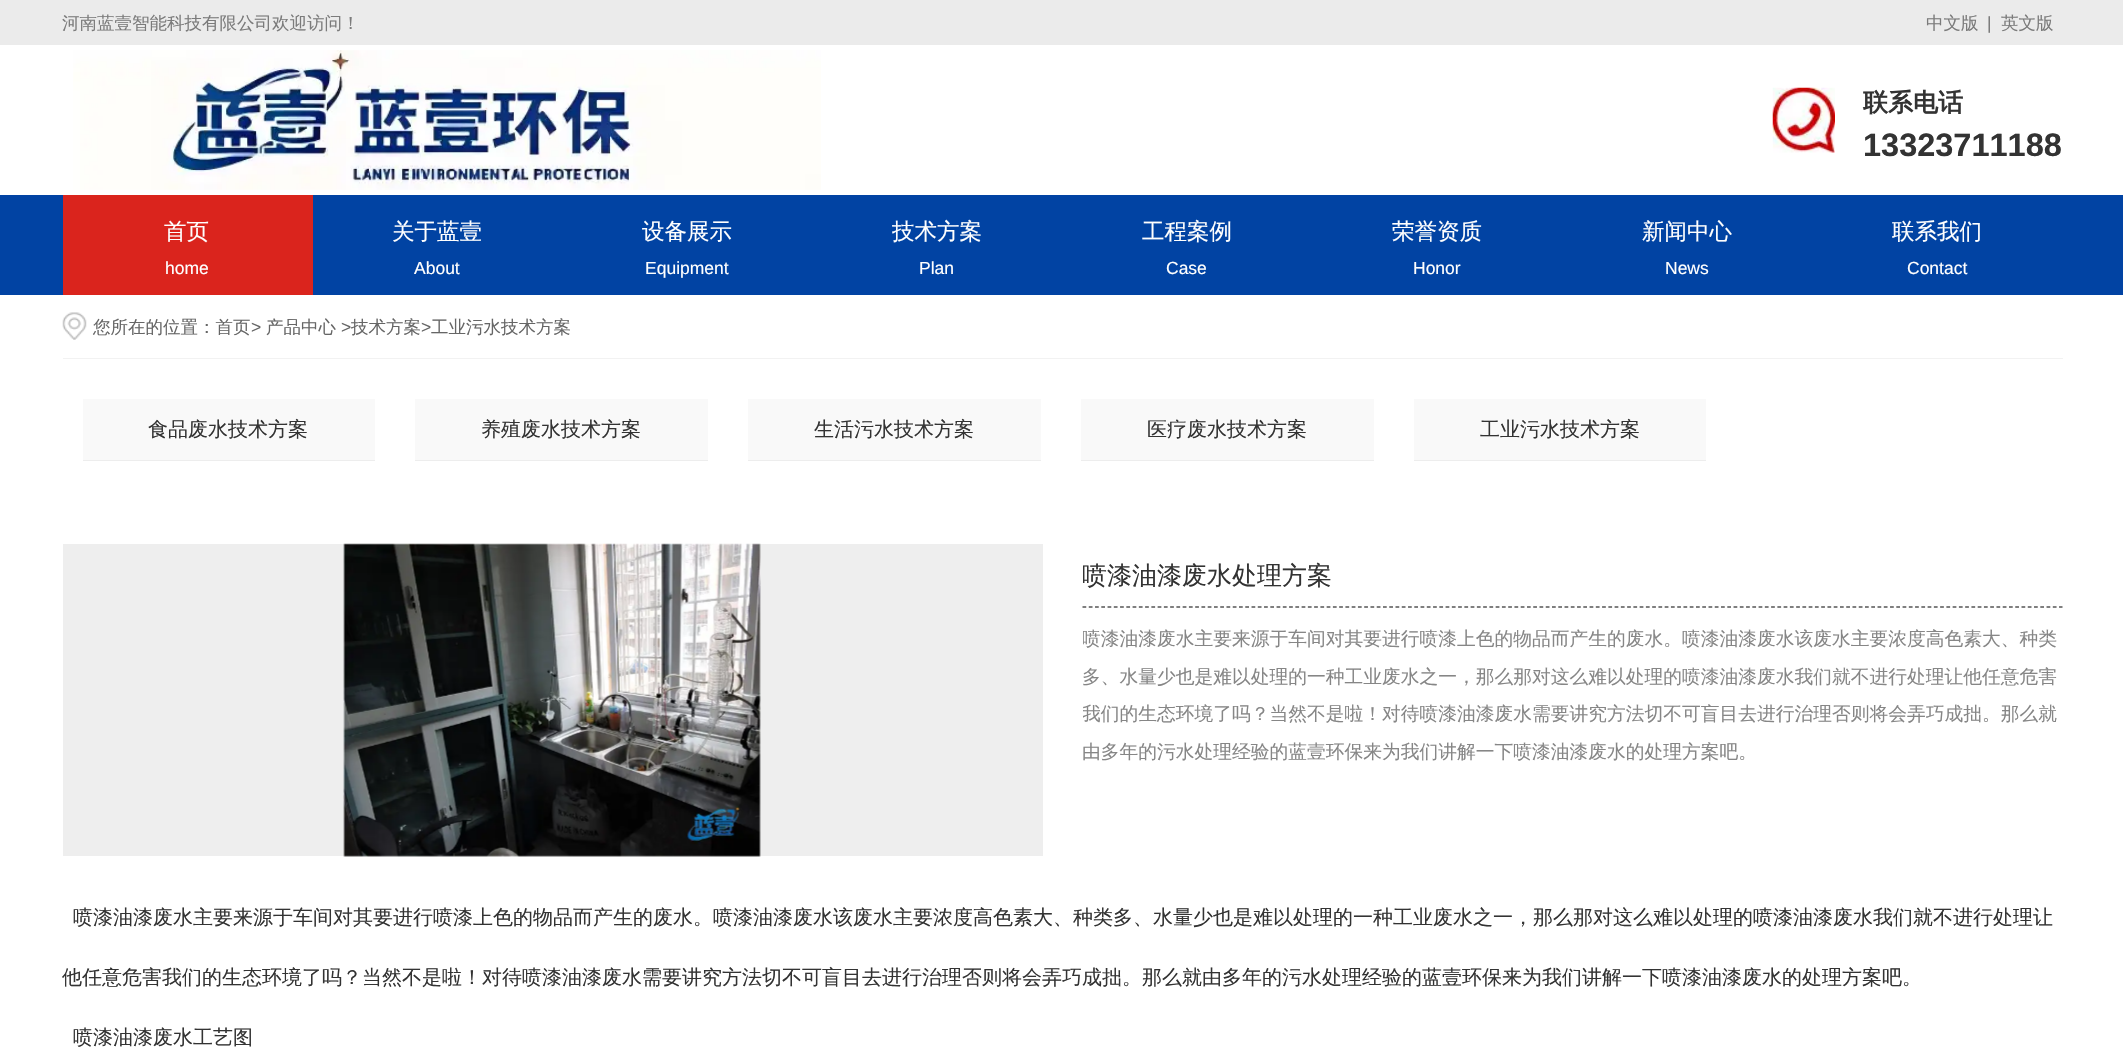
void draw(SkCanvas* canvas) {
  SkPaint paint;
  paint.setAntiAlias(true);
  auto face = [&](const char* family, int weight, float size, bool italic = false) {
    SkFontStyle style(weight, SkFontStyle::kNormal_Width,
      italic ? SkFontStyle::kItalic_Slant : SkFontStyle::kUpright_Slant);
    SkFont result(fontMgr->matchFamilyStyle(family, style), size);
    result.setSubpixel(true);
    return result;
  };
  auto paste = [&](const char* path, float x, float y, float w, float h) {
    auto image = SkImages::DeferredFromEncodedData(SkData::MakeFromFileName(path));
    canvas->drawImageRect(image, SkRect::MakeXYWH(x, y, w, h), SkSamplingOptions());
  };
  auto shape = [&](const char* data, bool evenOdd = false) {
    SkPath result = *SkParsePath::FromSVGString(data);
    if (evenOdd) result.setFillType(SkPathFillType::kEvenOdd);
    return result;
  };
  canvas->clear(0xffffffff);
  paint.setColor(0xffebebeb);
  canvas->drawRect(SkRect::MakeXYWH(0, 0, 2123, 45), paint);
  paste("img/1.png", 73, 50, 748, 140);
  paste("img/2.png", 1772, 87, 63, 66);
  paint.setColor(0xff0143a3);
  canvas->drawRect(SkRect::MakeXYWH(0, 195, 2123, 100), paint);
  paint.setColor(0xffda241d);
  canvas->drawRect(SkRect::MakeXYWH(63, 195, 250, 100), paint);
  paste("img/3.png", 62, 312, 25, 28);
  {
    const struct { float x, y, w, h; SkColor color; } items[] = {
      {63, 358, 2000, 1, 0xfff2f2f2},
      {83, 399, 292, 61, 0xfff9f9f9},
      {83, 460, 292, 1, 0xffededed},
      {415, 399, 293, 61, 0xfff9f9f9},
      {415, 460, 293, 1, 0xffededed},
      {748, 399, 293, 61, 0xfff9f9f9},
      {748, 460, 293, 1, 0xffededed},
      {1081, 399, 293, 61, 0xfff9f9f9},
      {1081, 460, 293, 1, 0xffededed},
      {1414, 399, 292, 61, 0xfff9f9f9},
      {1414, 460, 292, 1, 0xffededed},
      {63, 544, 980, 312, 0xffeeeeee},
    };
    for (auto [x, y, w, h, color] : items) {
      paint.setColor(color);
      canvas->drawRect(SkRect::MakeXYWH(x, y, w, h), paint);
    }
  }
  paste("img/4.png", 343, 543, 418, 314);
  paint.setStroke(true);
  paint.setStrokeWidth(1.2f);
  paint.setColor(0xff000000);
  paint.setPathEffect(SkDashPathEffect::Make({{3.75f, 2.51f}}, 0));
  canvas->drawPath(shape("M1082.5 607H2062.5"), paint);
  paint.setPathEffect(nullptr);
  auto f0 = face("WenQuanYi Zen Hei", 500, 17.5f);
  paint.setStroke(false);
  paint.setColor(0xff7b7b7b);
  canvas->drawString("河南蓝壹智能科技有限公司欢迎访问！", 62, 29, f0, paint);
  canvas->drawString("中文版", 1926, 29, f0, paint);
  auto f1 = face("Liberation Sans", 400, 17.5f);
  canvas->drawString("|", 1987, 29, f1, paint);
  canvas->drawString("英文版", 2001, 29, f0, paint);
  auto f2 = face("WenQuanYi Zen Hei", 700, 25);
  paint.setColor(0xff333333);
  canvas->drawString("联系电话", 1863, 111, f2, paint);
  auto f3 = face("Liberation Sans", 700, 32.5f);
  canvas->drawString("13323711188", 1863, 156, f3, paint);
  auto f4 = face("WenQuanYi Zen Hei", 500, 22.5f);
  paint.setColor(0xffffffff);
  canvas->drawString("首页", 164, 239, f4, paint);
  canvas->drawString("home", 165, 274, f1, paint);
  canvas->drawString("关于蓝壹", 392, 239, f4, paint);
  canvas->drawString("About", 414, 274, f1, paint);
  canvas->drawString("设备展示", 642, 239, f4, paint);
  canvas->drawString("Equipment", 645, 274, f1, paint);
  canvas->drawString("技术方案", 892, 239, f4, paint);
  canvas->drawString("Plan", 919, 274, f1, paint);
  canvas->drawString("工程案例", 1142, 239, f4, paint);
  canvas->drawString("Case", 1166, 274, f1, paint);
  canvas->drawString("荣誉资质", 1392, 239, f4, paint);
  canvas->drawString("Honor", 1413, 274, f1, paint);
  canvas->drawString("新闻中心", 1642, 239, f4, paint);
  canvas->drawString("News", 1665, 274, f1, paint);
  canvas->drawString("联系我们", 1892, 239, f4, paint);
  canvas->drawString("Contact", 1907, 274, f1, paint);
  paint.setColor(0xff666666);
  canvas->drawString("您所在的位置：首页", 93, 333, f0, paint);
  canvas->drawString(">", 251, 333, f1, paint);
  canvas->drawString("产品中心", 266, 333, f0, paint);
  canvas->drawString(">", 341, 333, f1, paint);
  canvas->drawString("技术方案", 351, 333, f0, paint);
  canvas->drawString(">", 421, 333, f1, paint);
  canvas->drawString("工业污水技术方案", 431, 333, f0, paint);
  auto f5 = face("WenQuanYi Zen Hei", 500, 20);
  paint.setColor(0xff333333);
  {
    const struct { const char* s; float x, y; } items[] = {
      {"食品废水技术方案", 148, 436},
      {"养殖废水技术方案", 481, 436},
      {"生活污水技术方案", 814, 436},
      {"医疗废水技术方案", 1147, 436},
      {"工业污水技术方案", 1480, 436},
    };
    for (auto [s, x, y] : items) {
      canvas->drawString(s, x, y, f5, paint);
    }
  }
  canvas->save();
  canvas->clipRect(SkRect::MakeXYWH(1083, 544, 980, 62));
  auto f6 = face("WenQuanYi Zen Hei", 500, 25);
  canvas->drawString("喷漆油漆废水处理方案", 1082, 584, f6, paint);
  canvas->restore();
  canvas->save();
  canvas->clipRect(SkRect::MakeXYWH(1083, 620, 980, 225));
  auto f7 = face("WenQuanYi Zen Hei", 500, 18.75f);
  paint.setColor(0xff868686);
  canvas->drawString("喷漆油漆废水主要来源于车间对其要进行喷漆上色的物品而产生的废水。喷漆油漆废水该废水主要浓度高色素大、种类", 1082, 645, f7, paint);
  canvas->restore();
  canvas->drawString("多、水量少也是难以处理的一种工业废水之一，那么那对这么难以处理的喷漆油漆废水我们就不进行处理让他任意危害", 1082, 683, f7, paint);
  canvas->save();
  canvas->clipRect(SkRect::MakeXYWH(1083, 620, 980, 225));
  canvas->drawString("我们的生态环境了吗？当然不是啦！对待喷漆油漆废水需要讲究方法切不可盲目去进行治理否则将会弄巧成拙。那么就", 1082, 720, f7, paint);
  canvas->restore();
  canvas->drawString("由多年的污水处理经验的蓝壹环保来为我们讲解一下喷漆油漆废水的处理方案吧。", 1082, 758, f7, paint);
  paint.setColor(0xff333333);
  {
    const struct { const char* s; float x, y; } items[] = {
      {"喷漆油漆废水主要来源于车间对其要进行喷漆上色的物品而产生的废水。喷漆油漆废水该废水主要浓度高色素大、种类多、水量少也是难以处理的一种工业废水之一，那么那对这么难以处理的喷漆油漆废水我们就不进行处理让", 73, 924},
      {"他任意危害我们的生态环境了吗？当然不是啦！对待喷漆油漆废水需要讲究方法切不可盲目去进行治理否则将会弄巧成拙。那么就由多年的污水处理经验的蓝壹环保来为我们讲解一下喷漆油漆废水的处理方案吧。", 62, 984},
      {"喷漆油漆废水工艺图", 73, 1044},
    };
    for (auto [s, x, y] : items) {
      canvas->drawString(s, x, y, f5, paint);
    }
  }
}
